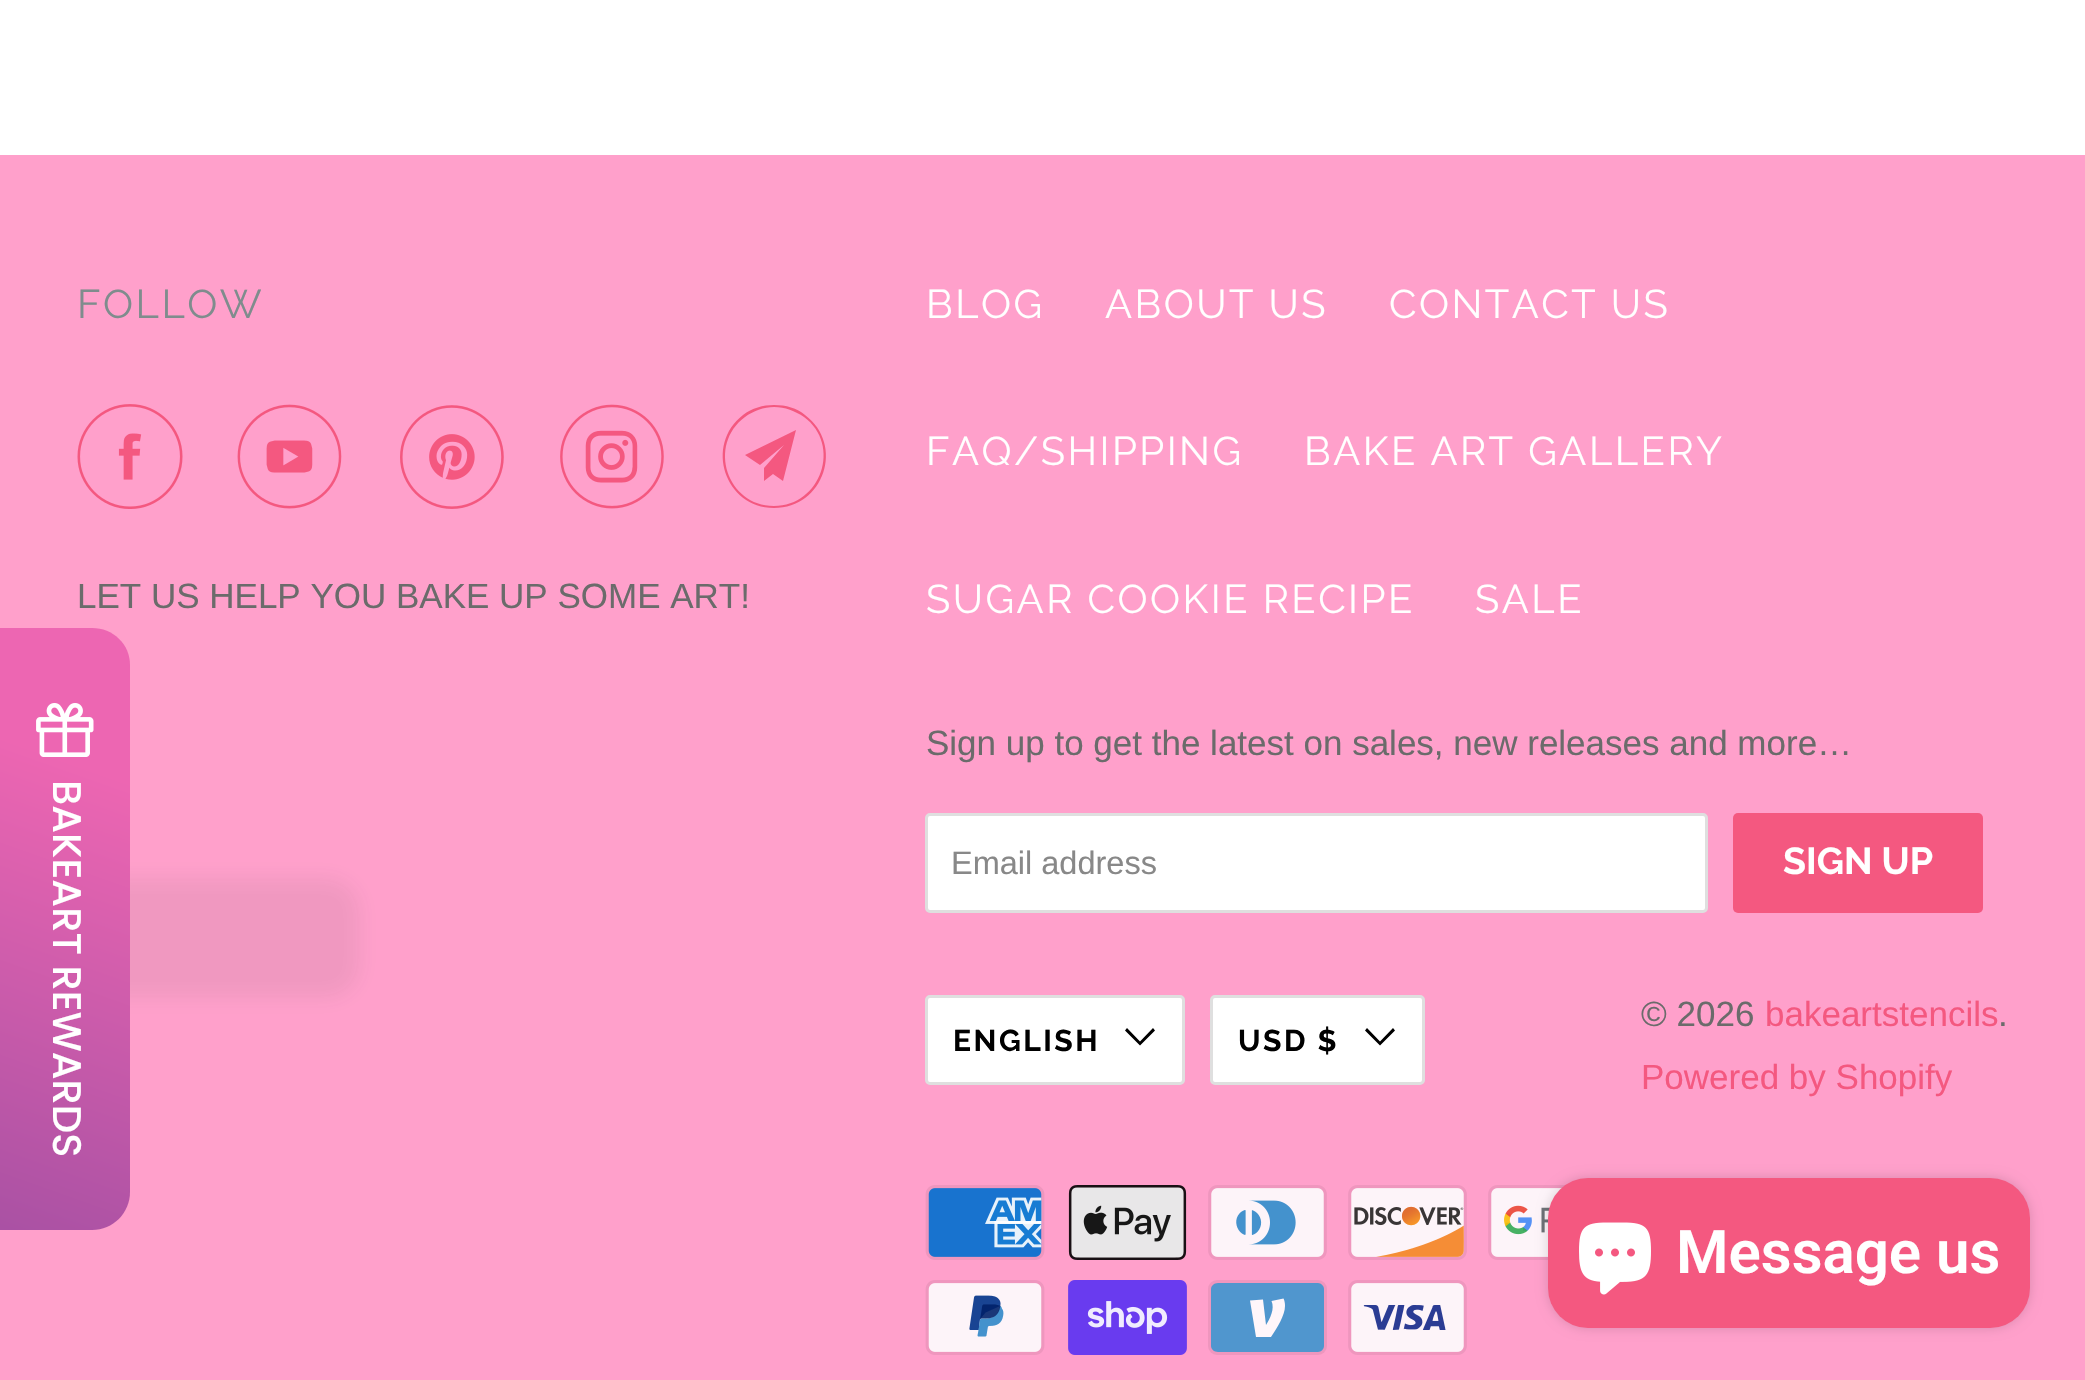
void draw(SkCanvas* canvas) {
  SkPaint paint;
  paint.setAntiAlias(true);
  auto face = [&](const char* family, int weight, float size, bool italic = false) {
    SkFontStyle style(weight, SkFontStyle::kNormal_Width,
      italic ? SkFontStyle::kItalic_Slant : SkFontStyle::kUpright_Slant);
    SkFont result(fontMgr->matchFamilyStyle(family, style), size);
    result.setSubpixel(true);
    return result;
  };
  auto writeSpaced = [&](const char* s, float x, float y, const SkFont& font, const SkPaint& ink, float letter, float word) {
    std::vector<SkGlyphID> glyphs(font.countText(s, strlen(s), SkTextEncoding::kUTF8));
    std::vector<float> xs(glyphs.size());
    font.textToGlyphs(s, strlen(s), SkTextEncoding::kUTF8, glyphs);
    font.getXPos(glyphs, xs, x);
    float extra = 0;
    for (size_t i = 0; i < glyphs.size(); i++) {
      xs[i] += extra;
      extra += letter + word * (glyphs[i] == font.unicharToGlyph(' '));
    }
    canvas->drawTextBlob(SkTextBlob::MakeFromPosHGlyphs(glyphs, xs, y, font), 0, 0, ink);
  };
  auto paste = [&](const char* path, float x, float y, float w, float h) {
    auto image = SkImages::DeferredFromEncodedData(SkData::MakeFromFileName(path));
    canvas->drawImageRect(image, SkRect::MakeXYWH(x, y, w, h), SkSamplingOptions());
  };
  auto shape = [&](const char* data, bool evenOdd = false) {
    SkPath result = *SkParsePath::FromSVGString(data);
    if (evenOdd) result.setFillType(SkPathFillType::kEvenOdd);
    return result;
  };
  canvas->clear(0xffffffff);
  paint.setColor(0xffffa0cb);
  canvas->drawRect(SkRect::MakeXYWH(0, 155, 2085, 1225), paint);
  paint.setColor(0x14444444);
  paint.setMaskFilter(SkMaskFilter::MakeBlur(kNormal_SkBlurStyle, 10));
  canvas->drawRoundRect(SkRect::MakeXYWH(-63, 878, 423, 120), 33, 33, paint);
  paint.setMaskFilter(nullptr);
  {
    const SkColor colors[] = {0xffed66b2, 0xff86469c};
    const float stops[] = {0.17f, 1};
    const SkPoint ends[] = {{167, 641}, {-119, 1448}};
    paint.setShader(SkGradientShader::MakeLinear(ends, colors, stops, 2, SkTileMode::kClamp));
    paint.setAlpha(255);
  }
  canvas->drawPath(shape("M130 665V1192C130 1213 113 1230 92 1230H0V628H92C113 628 130 644 130 665Z"), paint);
  paste("img/1.png", 36, 703, 58, 54);
  paste("img/2.png", 77, 404, 106, 105);
  paste("img/3.png", 237, 404, 105, 105);
  paste("img/4.png", 400, 405, 104, 104);
  paste("img/5.png", 560, 404, 104, 105);
  paint.setShader(nullptr);
  paint.setColor(0xfff45880);
  canvas->drawPath(shape("M783 481L773 474L764 481V468L784 445L760 465L745 455L796 430ZM774 407C764 407 753 411 745 417C707 445 727 506 774 506C821 506 842 445 804 417C795 411 785 407 774 407ZM774 508C725 508 704 445 743 415C752 408 763 405 774 405C786 405 797 408 805 415C845 445 824 508 774 508Z"), paint);
  paint.setColor(0xffffffff);
  canvas->drawRoundRect(SkRect::MakeXYWH(926.5f, 814.5f, 780, 97), 3.5f, 3.5f, paint);
  paint.setStroke(true);
  paint.setStrokeWidth(3);
  paint.setColor(0xffdfdfdf);
  canvas->drawRoundRect(SkRect::MakeXYWH(926.5f, 814.5f, 780, 97), 3.5f, 3.5f, paint);
  paint.setStroke(false);
  paint.setColor(0xfff45880);
  canvas->drawRoundRect(SkRect::MakeXYWH(1733, 813, 250, 100), 5, 5, paint);
  paint.setColor(0xffffffff);
  canvas->drawRoundRect(SkRect::MakeXYWH(926.5f, 996.5f, 257, 87), 3.5f, 3.5f, paint);
  paint.setStroke(true);
  paint.setColor(0xffdfdfdf);
  canvas->drawRoundRect(SkRect::MakeXYWH(926.5f, 996.5f, 257, 87), 3.5f, 3.5f, paint);
  paint.setStroke(false);
  paint.setColor(0xff000000);
  canvas->drawPath(shape("M1132.5 1038L1125 1030.5L1127 1028L1140 1041.5L1153 1028L1155 1030.5L1140 1045.5Z"), paint);
  paint.setColor(0xffffffff);
  canvas->drawRoundRect(SkRect::MakeXYWH(1211.5f, 996.5f, 212, 87), 3.5f, 3.5f, paint);
  paint.setStroke(true);
  paint.setColor(0xffdfdfdf);
  canvas->drawRoundRect(SkRect::MakeXYWH(1211.5f, 996.5f, 212, 87), 3.5f, 3.5f, paint);
  paint.setStroke(false);
  paint.setColor(0xff000000);
  canvas->drawPath(shape("M1372.5 1038L1365 1030.5L1367 1028L1380 1041.5L1393 1028L1395 1030.5L1380 1045.5Z"), paint);
  paste("img/6.png", 925, 1185, 120, 75);
  paste("img/7.png", 1068, 1185, 119, 75);
  paste("img/8.png", 1208, 1185, 119, 75);
  paste("img/9.png", 1348, 1185, 119, 75);
  paste("img/10.png", 1488, 1185, 78, 75);
  paste("img/11.png", 925, 1280, 120, 75);
  paste("img/12.png", 1068, 1280, 119, 75);
  paint.setColor(0xffef96be);
  canvas->drawRoundRect(SkRect::MakeXYWH(1208, 1280, 119, 75), 9, 9, paint);
  paste("img/13.png", 1348, 1280, 119, 75);
  paint.setColor(0xff5096ce);
  canvas->drawPath(shape("M1318 1283C1321 1283 1324 1286 1324 1289V1346C1324 1349 1321 1352 1318 1352H1218C1214 1352 1211 1349 1211 1346V1289C1211 1286 1214 1283 1218 1283H1318", true), paint);
  paint.setColor(0xfffff6fa);
  canvas->drawPath(shape("M1285 1306C1285 1315.5 1277 1328 1271 1337H1256L1250 1300.5L1263 1299.5L1266 1325C1270 1318.5 1275 1309 1271.5 1301L1283.5 1298.5C1284.5 1300.5 1285 1303 1285 1306Z"), paint);
  paint.setColor(0x26000000);
  paint.setMaskFilter(SkMaskFilter::MakeBlur(kNormal_SkBlurStyle, 6));
  canvas->drawRoundRect(SkRect::MakeXYWH(1548, 1178, 482, 150), 40, 40, paint);
  paint.setMaskFilter(nullptr);
  paint.setColor(0xfff45880);
  canvas->drawRoundRect(SkRect::MakeXYWH(1548, 1178, 482, 150), 40, 40, paint);
  paste("img/14.png", 1579, 1222, 72, 73);
  auto f0 = face("Poppins", 500, 40);
  paint.setColor(0xffffffff);
  canvas->save();
  canvas->rotate(90, 53, 780);
  canvas->drawString("BAKEART REWARDS", 53, 780, f0, paint);
  canvas->restore();
  auto f1 = face("Raleway", 400, 40);
  paint.setColor(0xff7f8c8d);
  writeSpaced("FOLLOW", 77, 318, f1, paint, 2.5f, 0);
  auto f2 = face("Liberation Sans", 400, 35);
  paint.setColor(0xff6b6b6b);
  canvas->drawString("LET US HELP YOU BAKE UP SOME ART!", 77, 608, f2, paint);
  paint.setColor(0xffffffff);
  {
    const struct { const char* s; float x, y; } items[] = {
      {"BLOG", 926, 318},
      {"ABOUT US", 1105, 318},
      {"CONTACT US", 1389, 318},
      {"FAQ/SHIPPING", 926, 465},
      {"BAKE ART GALLERY", 1304, 465},
      {"SUGAR COOKIE RECIPE", 926, 613},
      {"SALE", 1475, 613},
    };
    for (auto [s, x, y] : items) {
      writeSpaced(s, x, y, f1, paint, 2.5f, 0);
    }
  }
  paint.setColor(0xff6b6b6b);
  canvas->drawString("Sign up to get the latest on sales, new releases and more…", 926, 755, f2, paint);
  auto f3 = face("Liberation Sans", 400, 32.5f);
  paint.setColor(0xff888888);
  canvas->drawString("Email address", 951, 874, f3, paint);
  auto f4 = face("Raleway", 700, 37.5f);
  paint.setColor(0xffffffff);
  canvas->drawString("SIGN UP", 1783, 874, f4, paint);
  auto f5 = face("Raleway", 700, 30);
  paint.setColor(0xff000000);
  writeSpaced("ENGLISH", 953, 1051, f5, paint, 2.5f, 0);
  writeSpaced("USD $", 1238, 1051, f5, paint, 2.5f, 0);
  paint.setColor(0xff6b6b6b);
  canvas->drawString("© 2026", 1641, 1026, f2, paint);
  paint.setColor(0xfff45880);
  canvas->drawString("bakeartstencils", 1765, 1026, f2, paint);
  paint.setColor(0xff6b6b6b);
  canvas->drawString(".", 1998, 1026, f2, paint);
  paint.setColor(0xfff45880);
  canvas->drawString("Powered by Shopify", 1641, 1089, f2, paint);
  auto f6 = face("Roboto", 600, 60);
  paint.setColor(0xffffffff);
  canvas->drawString("Message us", 1676, 1273, f6, paint);
}
